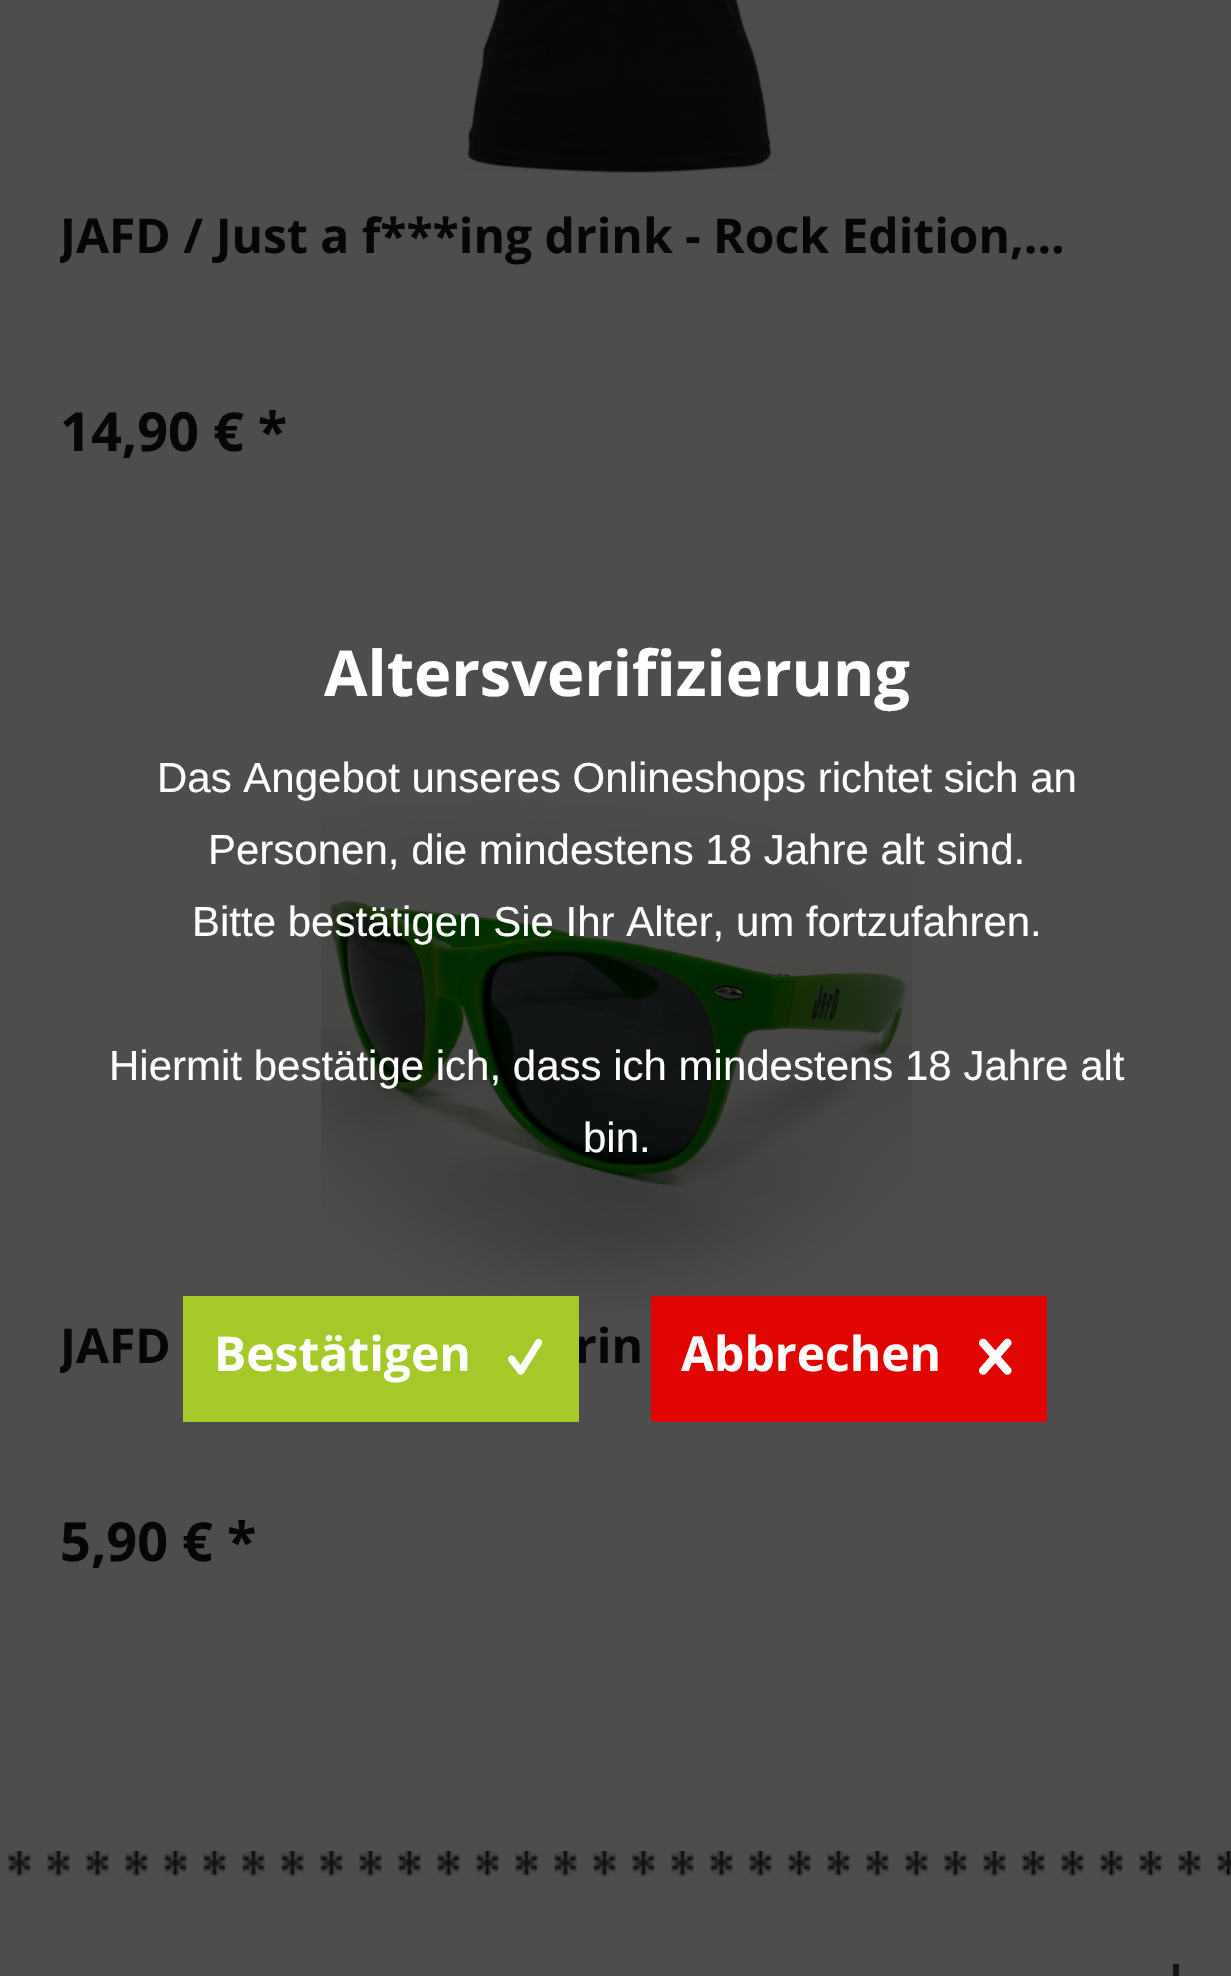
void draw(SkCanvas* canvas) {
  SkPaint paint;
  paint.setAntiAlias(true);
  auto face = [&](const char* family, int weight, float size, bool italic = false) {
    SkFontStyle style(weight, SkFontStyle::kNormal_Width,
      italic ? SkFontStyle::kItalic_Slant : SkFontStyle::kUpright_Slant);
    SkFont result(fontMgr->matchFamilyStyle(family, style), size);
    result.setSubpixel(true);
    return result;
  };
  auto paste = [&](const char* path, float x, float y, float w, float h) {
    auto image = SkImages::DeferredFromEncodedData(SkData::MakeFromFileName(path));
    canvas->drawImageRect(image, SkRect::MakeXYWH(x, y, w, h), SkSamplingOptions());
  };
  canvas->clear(0xff4d4d4d);
  paste("img/1.png", 464, 0, 314, 173);
  paste("img/2.png", 321, 802, 591, 512);
  paste("img/3.png", 8, 1851, 1223, 25);
  paint.setColor(0xff151515);
  canvas->drawRect(SkRect::MakeXYWH(1173, 1964, 6, 12), paint);
  paint.setColor(0xffe10500);
  canvas->drawRect(SkRect::MakeXYWH(651, 1296, 396, 126), paint);
  paste("img/5.png", 979, 1338, 33, 37);
  canvas->save();
  canvas->clipRect(SkRect::MakeXYWH(60, 204, 1113, 120));
  auto f0 = face("Open Sans", 700, 48);
  paint.setColor(0xff060606);
  canvas->drawString("JAFD / Just a f***ing drink - Rock Edition,...", 60, 253, f0, paint);
  canvas->restore();
  auto f1 = face("Open Sans", 700, 54);
  canvas->drawString("14,90 € *", 60, 451, f1, paint);
  canvas->save();
  canvas->clipRect(SkRect::MakeXYWH(60, 1314, 1113, 120));
  canvas->drawString("JAFD", 60, 1363, f0, paint);
  canvas->restore();
  canvas->drawString("rin", 575, 1363, f0, paint);
  canvas->drawString("5,90 € *", 60, 1561, f1, paint);
  auto f2 = face("Open Sans", 700, 63);
  paint.setColor(0xffffffff);
  canvas->drawString("Altersverifizierung", 324, 696, f2, paint);
  auto f3 = face("Liberation Sans", 400, 42);
  {
    const struct { const char* s; float x, y; } items[] = {
      {"Das Angebot unseres Onlineshops richtet sich an", 157, 792},
      {"Personen, die mindestens 18 Jahre alt sind.", 208, 864},
      {"Bitte bestätigen Sie Ihr Alter, um fortzufahren.", 192, 936},
      {"Hiermit bestätige ich, dass ich mindestens 18 Jahre alt", 109, 1080},
      {"bin.", 583, 1152},
    };
    for (auto [s, x, y] : items) {
      canvas->drawString(s, x, y, f3, paint);
    }
  }
  paint.setColor(0xffa4c928);
  canvas->drawRect(SkRect::MakeXYWH(183, 1296, 396, 126), paint);
  paint.setColor(0xffffffff);
  canvas->drawString("Bestätigen", 214, 1371, f0, paint);
  paste("img/4.png", 508, 1338, 35, 37);
  canvas->drawString("Abbrechen", 681, 1371, f0, paint);
}
